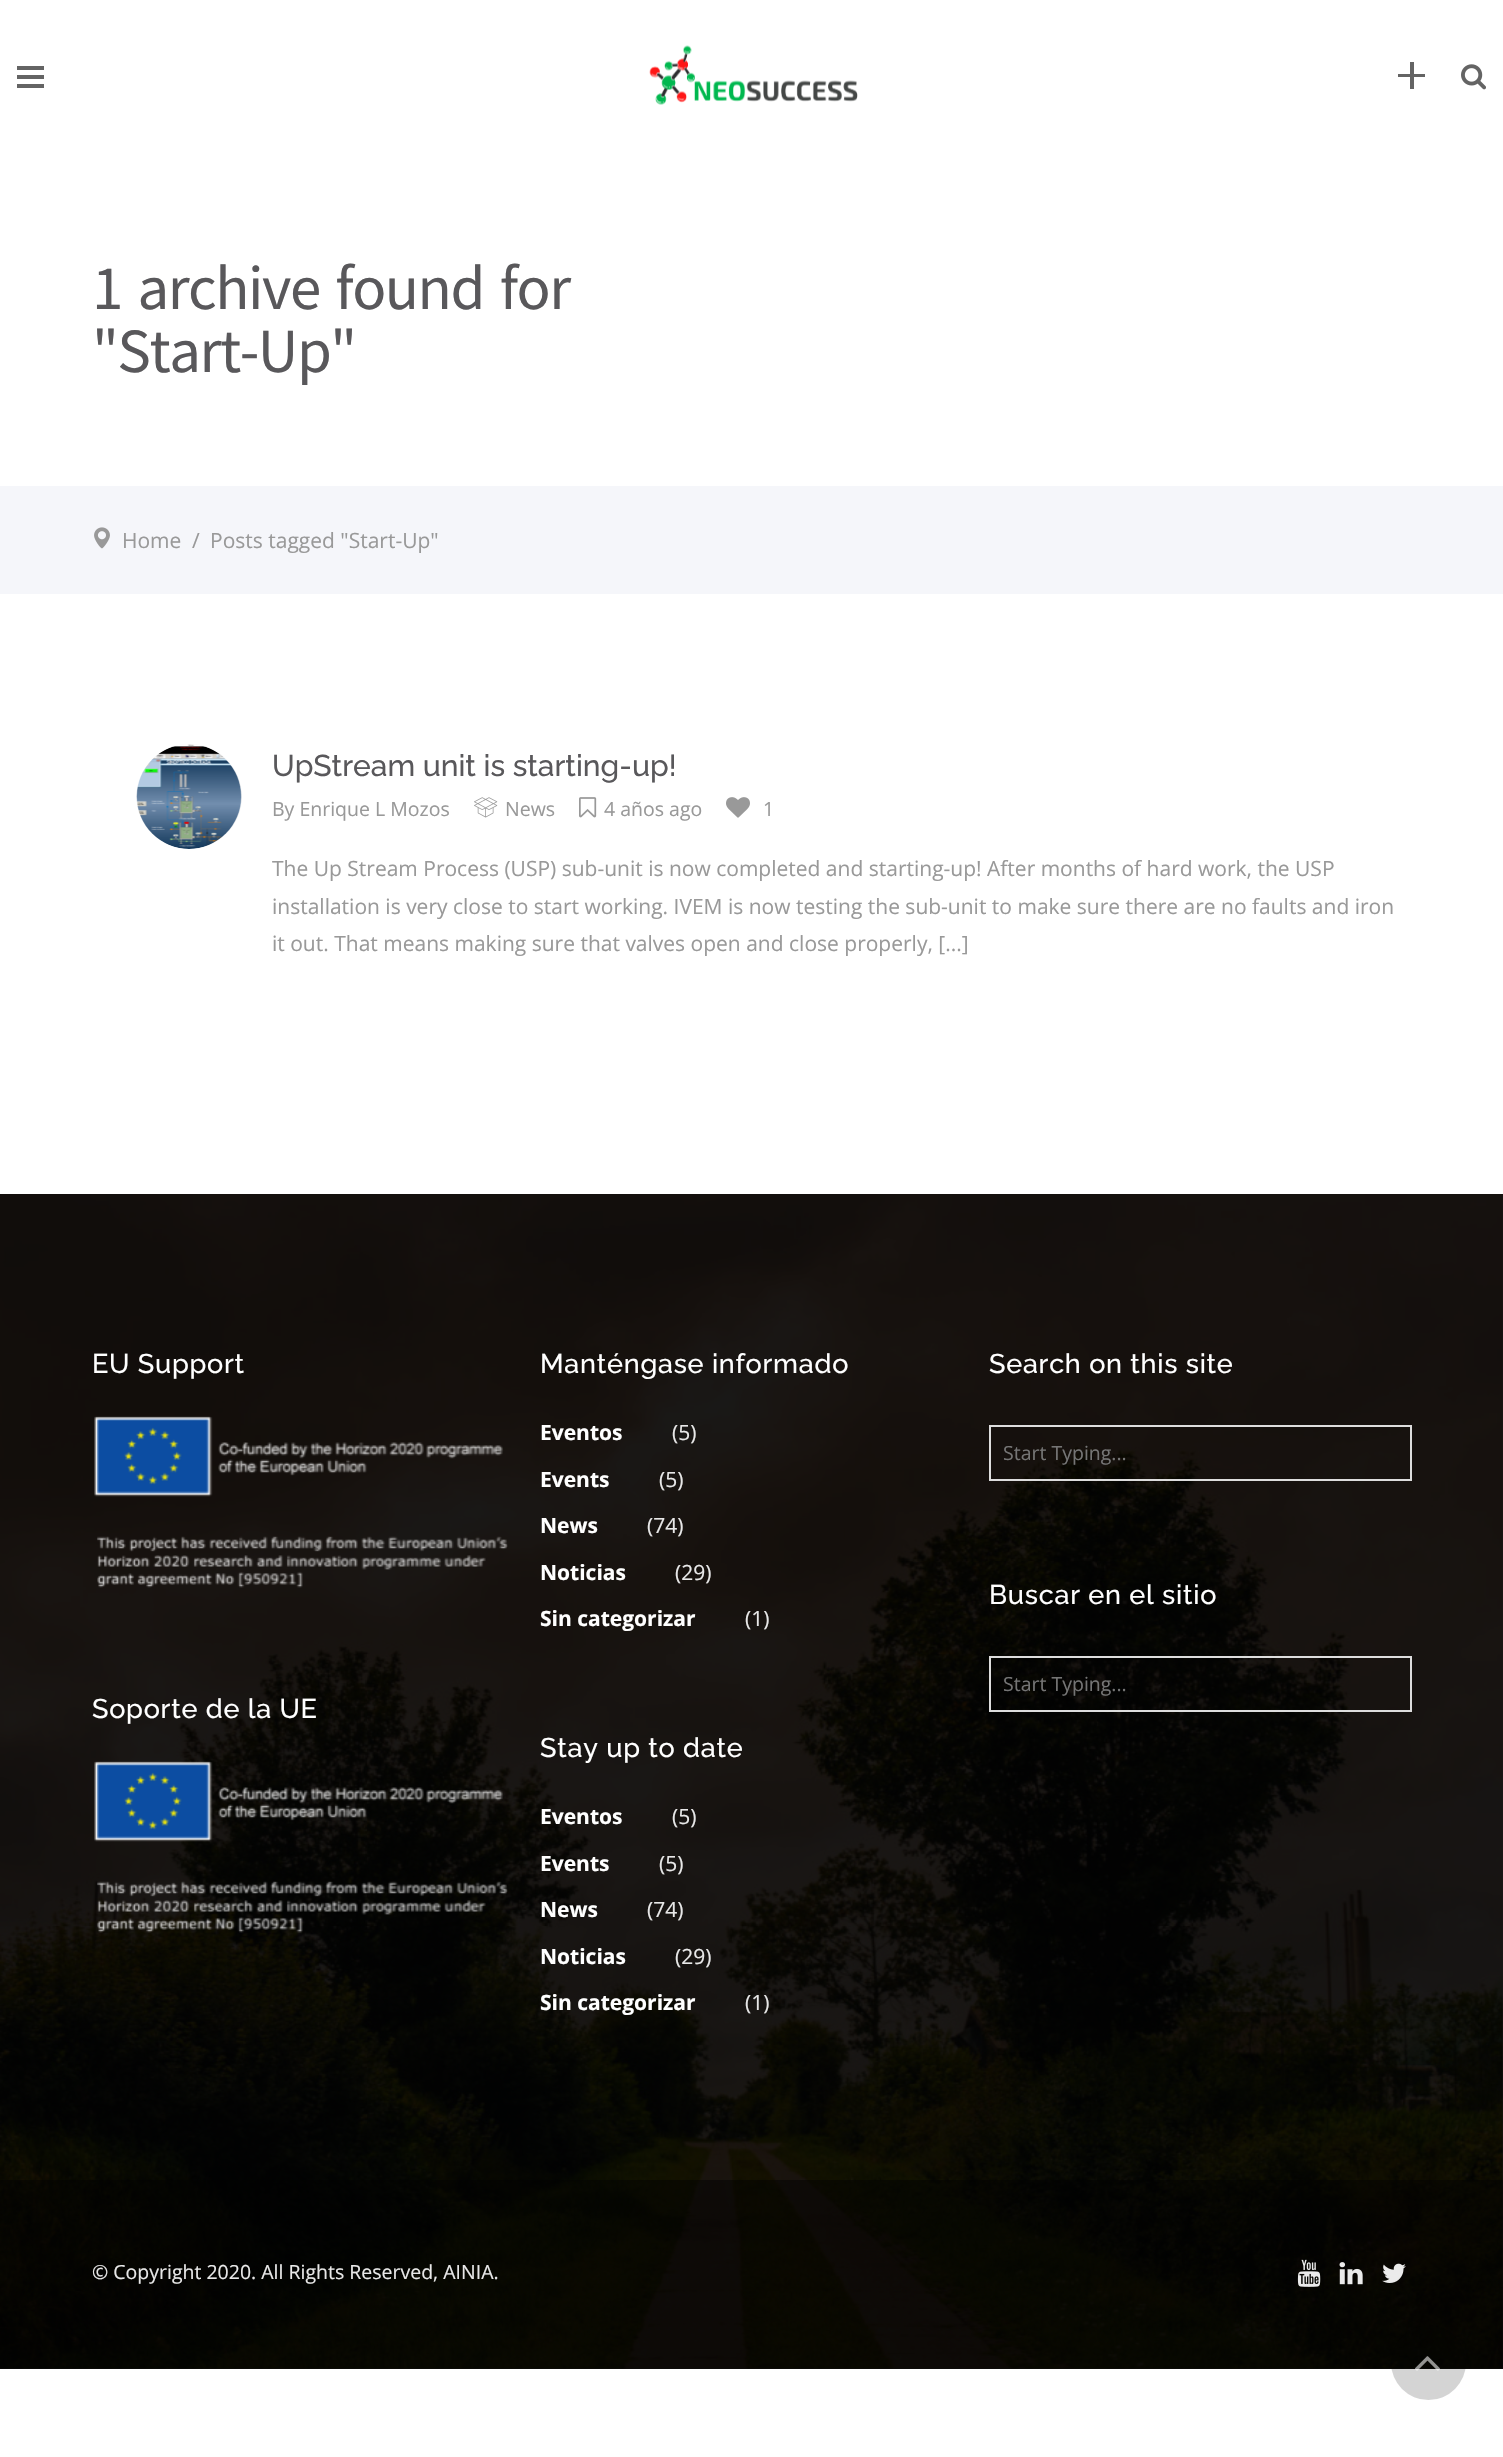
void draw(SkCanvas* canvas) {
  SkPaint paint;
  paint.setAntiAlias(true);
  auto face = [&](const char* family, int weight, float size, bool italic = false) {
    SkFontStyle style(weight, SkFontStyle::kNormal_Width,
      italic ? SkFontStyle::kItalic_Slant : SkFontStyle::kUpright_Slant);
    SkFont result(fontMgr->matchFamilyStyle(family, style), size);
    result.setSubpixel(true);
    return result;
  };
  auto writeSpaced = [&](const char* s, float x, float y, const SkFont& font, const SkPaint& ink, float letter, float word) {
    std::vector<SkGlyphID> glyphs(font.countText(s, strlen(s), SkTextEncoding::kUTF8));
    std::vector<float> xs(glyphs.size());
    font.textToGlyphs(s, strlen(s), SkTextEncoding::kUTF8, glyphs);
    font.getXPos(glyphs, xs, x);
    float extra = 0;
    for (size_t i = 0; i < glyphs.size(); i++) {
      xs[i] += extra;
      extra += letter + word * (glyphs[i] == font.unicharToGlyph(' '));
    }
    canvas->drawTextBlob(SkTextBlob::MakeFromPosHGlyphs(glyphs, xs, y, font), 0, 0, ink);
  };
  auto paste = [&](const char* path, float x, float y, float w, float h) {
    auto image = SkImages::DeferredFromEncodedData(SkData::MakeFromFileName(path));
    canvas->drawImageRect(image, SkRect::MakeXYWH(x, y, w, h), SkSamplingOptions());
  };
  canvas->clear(0xffffffff);
  {
    const struct { float x, y, w, h; SkColor color; } items[] = {
      {17, 66, 27, 4, 0xff646464},
      {17, 75, 27, 4, 0xff646464},
      {17, 84, 27, 4, 0xff646464},
    };
    for (auto [x, y, w, h, color] : items) {
      paint.setColor(color);
      canvas->drawRect(SkRect::MakeXYWH(x, y, w, h), paint);
    }
  }
  paste("img/1.png", 649, 45, 209, 60);
  canvas->drawRect(SkRect::MakeXYWH(1410, 62, 4, 27), paint);
  canvas->drawRect(SkRect::MakeXYWH(1398, 74, 27, 3), paint);
  paste("img/2.png", 1461, 64, 25, 26);
  paint.setColor(0xfff5f6fa);
  canvas->drawRect(SkRect::MakeXYWH(0, 486, 1503, 108), paint);
  paste("img/3.png", 94, 527, 16, 22);
  paint.setColor(0xfff7f7f7);
  canvas->drawCircle(189.5f, 796.5f, 52.5f, paint);
  paste("img/4.png", 136, 744, 106, 105);
  paste("img/5.png", 474, 797, 24, 21);
  paste("img/6.png", 579, 797, 18, 21);
  paste("img/7.png", 726, 797, 24, 21);
  paste("img/8.png", 0, 1194, 1503, 1175);
  paint.setColor(0xe6000000);
  canvas->drawRect(SkRect::MakeXYWH(0, 1194, 1503, 986), paint);
  paste("img/9.png", 94, 1416, 414, 172);
  paste("img/10.png", 94, 1761, 414, 172);
  paint.setStroke(true);
  paint.setStrokeWidth(2);
  paint.setColor(0xffdddddd);
  canvas->drawRect(SkRect::MakeXYWH(990, 1426, 421, 54), paint);
  canvas->drawRect(SkRect::MakeXYWH(990, 1657, 421, 54), paint);
  paint.setStroke(false);
  paint.setColor(0xf2000000);
  canvas->drawRect(SkRect::MakeXYWH(0, 2180, 1503, 189), paint);
  paste("img/11.png", 1297, 2259, 24, 28);
  paste("img/12.png", 1339, 2262, 24, 23);
  paste("img/13.png", 1382, 2263, 24, 20);
  paint.setColor(0x2b000000);
  canvas->drawCircle(1428.5f, 2362.5f, 37.5f, paint);
  paste("img/14.png", 1415, 2356, 25, 15);
  auto f0 = face("Source Sans Pro", 400, 63);
  paint.setColor(0xff59585b);
  writeSpaced("1 archive found for", 92, 309, f0, paint, -1.5f, 4.5f);
  writeSpaced("\"Start-Up\"", 92, 372, f0, paint, -1.5f, 0);
  auto f1 = face("Open Sans", 400, 21);
  paint.setColor(0xff999999);
  {
    const struct { const char* s; float x, y; } items[] = {
      {"Home", 122, 548},
      {"/", 192, 548},
      {"Posts tagged \"Start-Up\"", 210, 548},
    };
    for (auto [s, x, y] : items) {
      canvas->drawString(s, x, y, f1, paint);
    }
  }
  auto f2 = face("Raleway", 500, 30);
  paint.setColor(0xff59585b);
  canvas->drawString("UpStream unit is starting-up!", 272, 776, f2, paint);
  auto f3 = face("Open Sans", 400, 19.5f);
  paint.setColor(0xff999999);
  {
    const struct { const char* s; float x, y; } items[] = {
      {"By Enrique L Mozos", 272, 816},
      {"News", 505, 816},
      {"4 años ago", 604, 816},
      {"1", 763, 816},
    };
    for (auto [s, x, y] : items) {
      canvas->drawString(s, x, y, f3, paint);
    }
  }
  {
    const struct { const char* s; float x, y; } items[] = {
      {"The Up Stream Process (USP) sub-unit is now completed and starting-up! After months of hard work, the USP", 272, 876},
      {"installation is very close to start working. IVEM is now testing the sub-unit to make sure there are no faults and iron", 272, 914},
      {"it out. That means making sure that valves open and close properly, [...]", 272, 951},
    };
    for (auto [s, x, y] : items) {
      canvas->drawString(s, x, y, f1, paint);
    }
  }
  auto f4 = face("Raleway", 500, 27);
  paint.setColor(0xffffffff);
  {
    const struct { const char* s; float x, y; } items[] = {
      {"EU Support", 92, 1373},
      {"Soporte de la UE", 92, 1718},
      {"Manténgase informado", 540, 1373},
    };
    for (auto [s, x, y] : items) {
      writeSpaced(s, x, y, f4, paint, 0.75f, 0);
    }
  }
  auto f5 = face("Open Sans", 700, 21);
  canvas->drawString("Eventos", 540, 1440, f5, paint);
  paint.setColor(0xffe8e8e8);
  canvas->drawString("(5)", 672, 1440, f1, paint);
  paint.setColor(0xffffffff);
  canvas->drawString("Events", 540, 1487, f5, paint);
  paint.setColor(0xffe8e8e8);
  canvas->drawString("(5)", 659, 1487, f1, paint);
  paint.setColor(0xffffffff);
  canvas->drawString("News", 540, 1533, f5, paint);
  paint.setColor(0xffe8e8e8);
  canvas->drawString("(74)", 647, 1533, f1, paint);
  paint.setColor(0xffffffff);
  canvas->drawString("Noticias", 540, 1580, f5, paint);
  paint.setColor(0xffe8e8e8);
  canvas->drawString("(29)", 675, 1580, f1, paint);
  paint.setColor(0xffffffff);
  canvas->drawString("Sin categorizar", 540, 1626, f5, paint);
  paint.setColor(0xffe8e8e8);
  canvas->drawString("(1)", 745, 1626, f1, paint);
  paint.setColor(0xffffffff);
  writeSpaced("Stay up to date", 540, 1757, f4, paint, 0.75f, 0);
  canvas->drawString("Eventos", 540, 1824, f5, paint);
  paint.setColor(0xffe8e8e8);
  canvas->drawString("(5)", 672, 1824, f1, paint);
  paint.setColor(0xffffffff);
  canvas->drawString("Events", 540, 1871, f5, paint);
  paint.setColor(0xffe8e8e8);
  canvas->drawString("(5)", 659, 1871, f1, paint);
  paint.setColor(0xffffffff);
  canvas->drawString("News", 540, 1917, f5, paint);
  paint.setColor(0xffe8e8e8);
  canvas->drawString("(74)", 647, 1917, f1, paint);
  paint.setColor(0xffffffff);
  canvas->drawString("Noticias", 540, 1964, f5, paint);
  paint.setColor(0xffe8e8e8);
  canvas->drawString("(29)", 675, 1964, f1, paint);
  paint.setColor(0xffffffff);
  canvas->drawString("Sin categorizar", 540, 2010, f5, paint);
  paint.setColor(0xffe8e8e8);
  canvas->drawString("(1)", 745, 2010, f1, paint);
  paint.setColor(0xffffffff);
  writeSpaced("Search on this site", 989, 1373, f4, paint, 0.75f, 0);
  paint.setColor(0xff757575);
  canvas->drawString("Start Typing...", 1003, 1460, f3, paint);
  paint.setColor(0xffffffff);
  writeSpaced("Buscar en el sitio", 989, 1604, f4, paint, 0.75f, 0);
  paint.setColor(0xff757575);
  canvas->drawString("Start Typing...", 1003, 1691, f3, paint);
  paint.setColor(0xffe8e8e8);
  canvas->drawString("© Copyright 2020. All Rights Reserved, AINIA.", 92, 2279, f3, paint);
}
